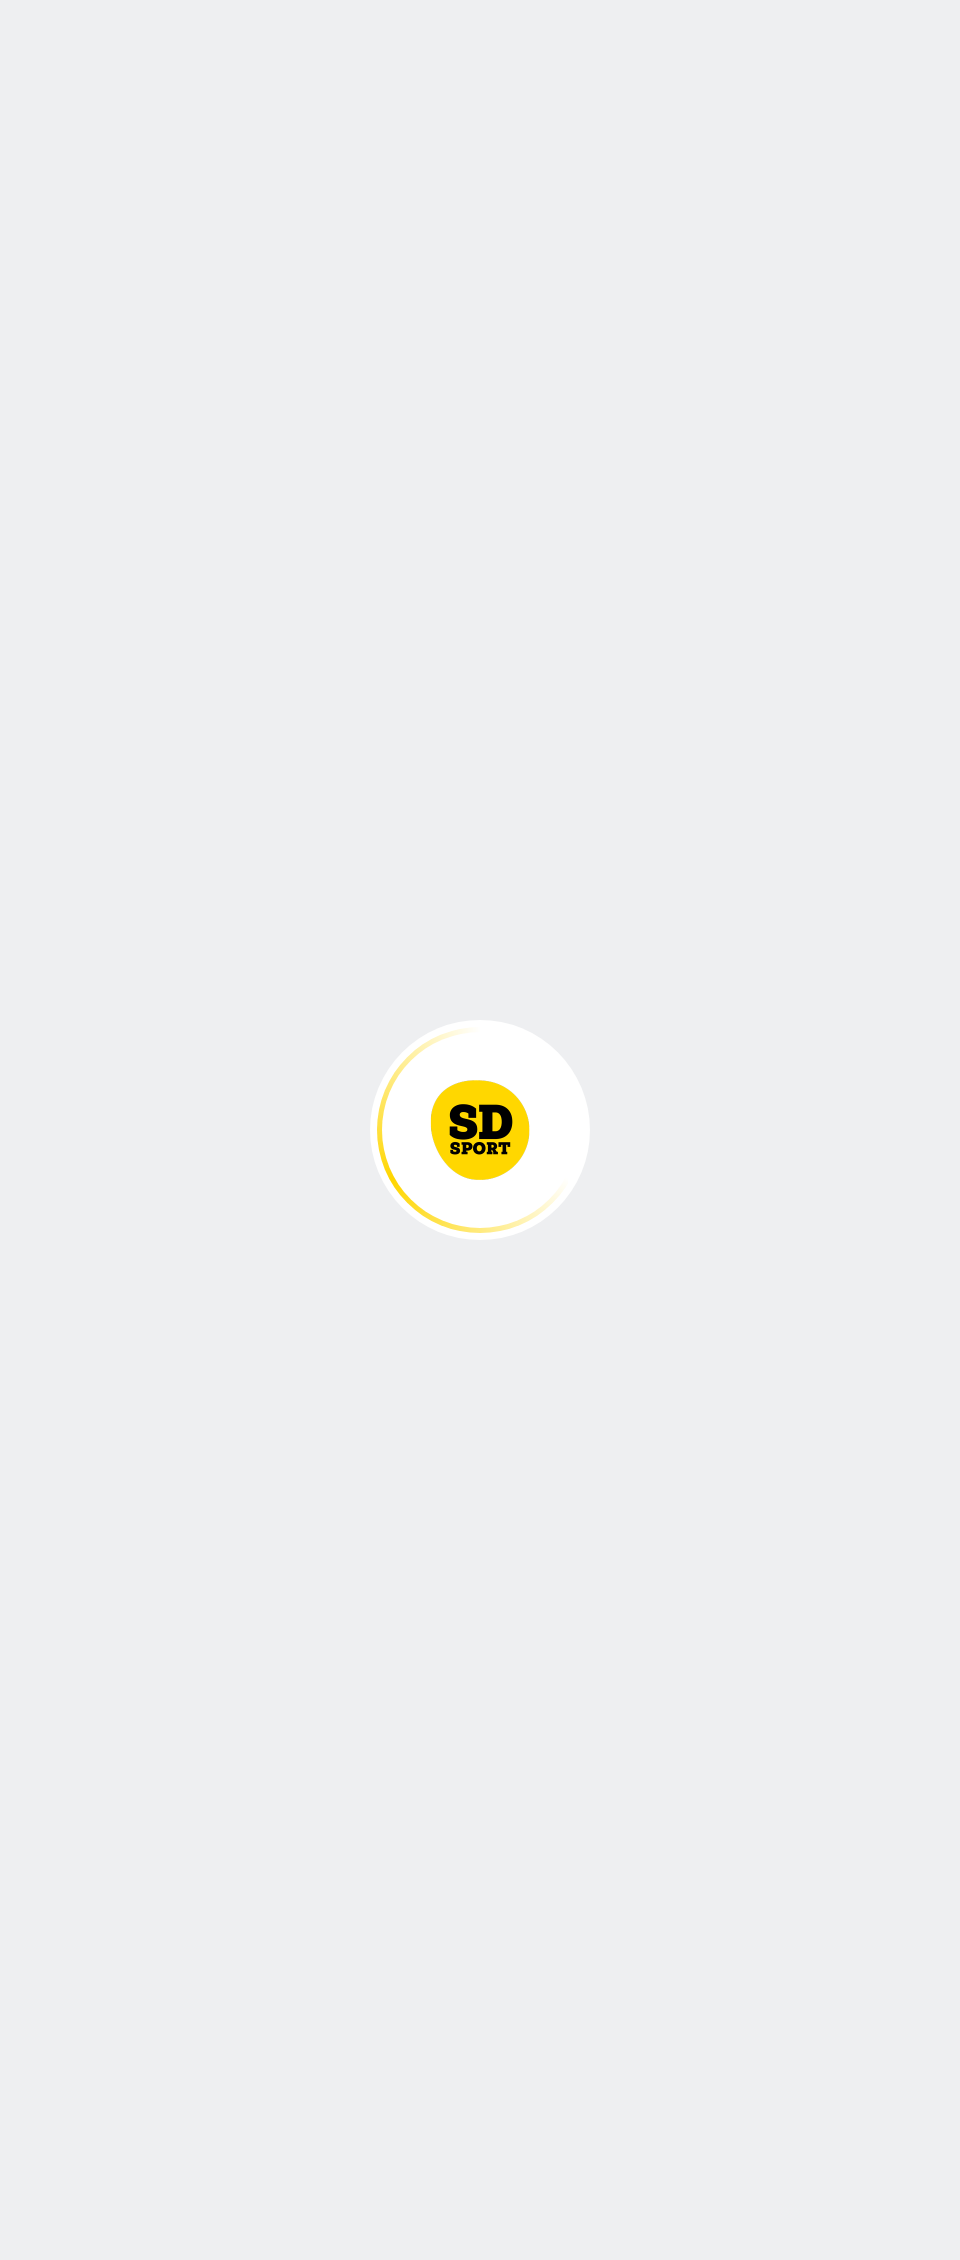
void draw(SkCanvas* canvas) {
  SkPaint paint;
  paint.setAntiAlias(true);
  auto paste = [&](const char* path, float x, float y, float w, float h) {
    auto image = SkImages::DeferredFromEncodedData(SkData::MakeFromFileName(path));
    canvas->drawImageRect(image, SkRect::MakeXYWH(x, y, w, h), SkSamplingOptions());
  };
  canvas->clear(0xffeeeff1);
  paint.setColor(0xffffffff);
  canvas->drawCircle(480, 1130, 110, paint);
  paste("img/1.png", 377, 1027, 191, 206);
  canvas->drawCircle(480, 1130, 98, paint);
  paste("img/2.png", 430, 1080, 100, 100);
}
